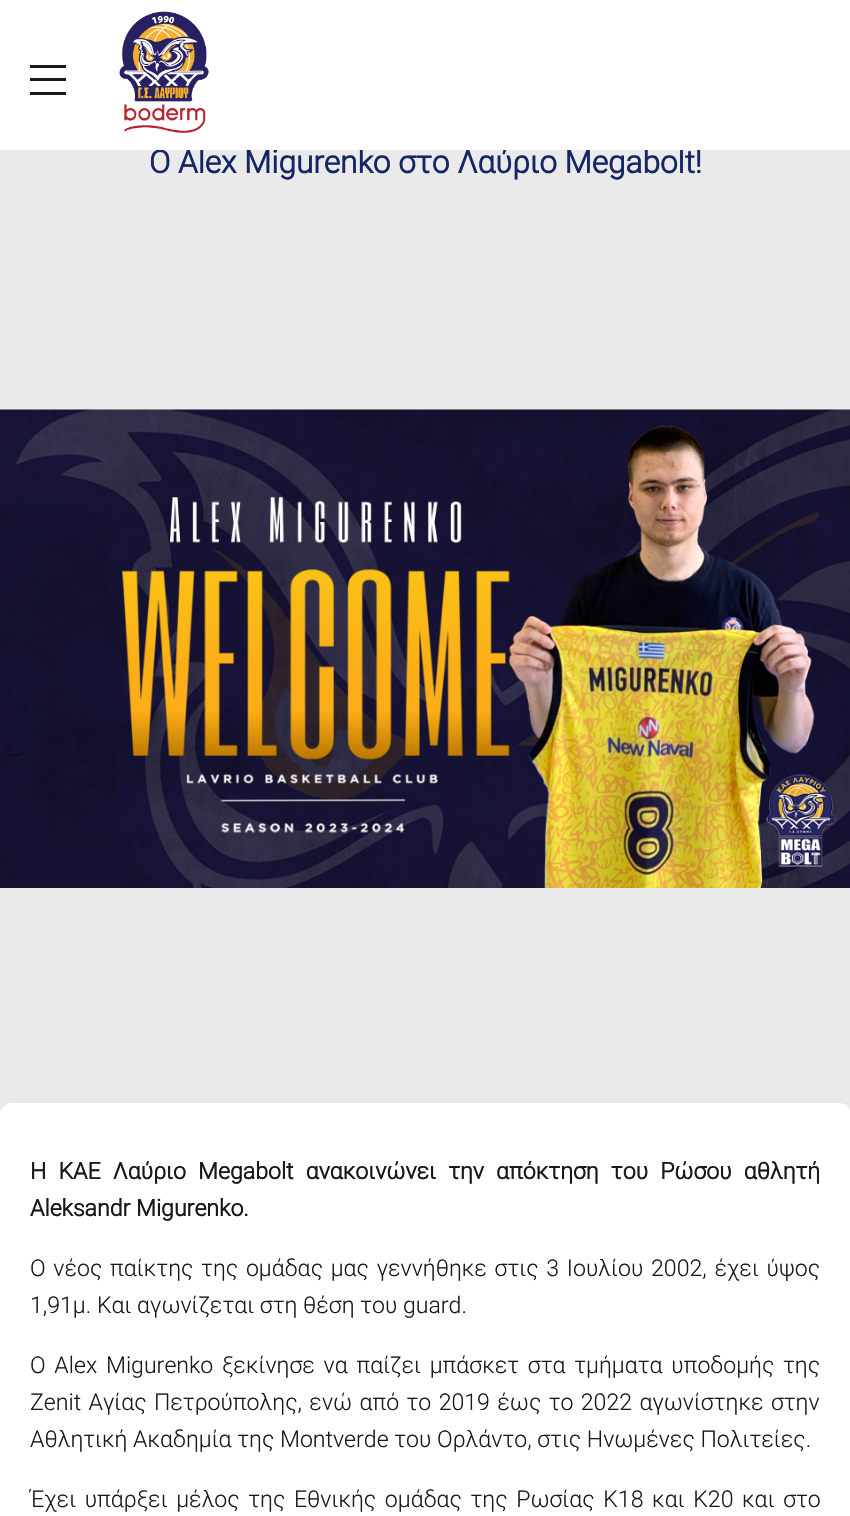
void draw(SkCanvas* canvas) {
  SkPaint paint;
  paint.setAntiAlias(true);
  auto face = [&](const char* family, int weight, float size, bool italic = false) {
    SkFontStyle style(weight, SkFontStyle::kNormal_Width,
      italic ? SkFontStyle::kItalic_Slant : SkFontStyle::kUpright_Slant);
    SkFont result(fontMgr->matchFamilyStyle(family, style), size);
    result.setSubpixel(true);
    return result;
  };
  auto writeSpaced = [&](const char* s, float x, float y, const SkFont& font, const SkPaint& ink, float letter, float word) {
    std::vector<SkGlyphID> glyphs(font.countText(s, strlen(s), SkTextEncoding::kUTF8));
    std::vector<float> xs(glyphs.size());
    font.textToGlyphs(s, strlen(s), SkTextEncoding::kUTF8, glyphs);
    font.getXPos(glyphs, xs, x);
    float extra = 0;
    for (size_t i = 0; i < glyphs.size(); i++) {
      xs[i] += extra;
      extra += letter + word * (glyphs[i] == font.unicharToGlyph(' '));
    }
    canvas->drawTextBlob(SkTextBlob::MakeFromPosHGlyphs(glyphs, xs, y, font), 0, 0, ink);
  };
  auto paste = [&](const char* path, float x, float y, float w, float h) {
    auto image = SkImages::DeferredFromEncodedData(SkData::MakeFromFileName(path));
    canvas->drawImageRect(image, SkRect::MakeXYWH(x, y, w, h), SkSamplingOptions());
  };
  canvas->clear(0xffeaeaea);
  paste("img/2.png", 0, 409, 850, 479);
  paint.setColor(0xffffffff);
  canvas->drawRoundRect(SkRect::MakeXYWH(0, 1103, 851, 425), 12, 12, paint);
  auto f0 = face("Roboto", 700, 31.5f);
  paint.setColor(0xff142665);
  canvas->drawString("Ο Alex Migurenko στο Λαύριο Megabolt!", 149, 173, f0, paint);
  paint.setColor(0xffffffff);
  canvas->drawRect(SkRect::MakeXYWH(0, 0, 850, 150), paint);
  paste("img/1.png", 119, 11, 90, 122);
  {
    const struct { float x, y, w, h; SkColor color; } items[] = {
      {30, 92, 36, 3, 0xff181818},
      {30, 78, 36, 3, 0xff181818},
      {30, 65, 36, 3, 0xff181818},
    };
    for (auto [x, y, w, h, color] : items) {
      paint.setColor(color);
      canvas->drawRect(SkRect::MakeXYWH(x, y, w, h), paint);
    }
  }
  auto f1 = face("Roboto", 700, 23.1f);
  writeSpaced("Η ΚΑΕ Λαύριο Megabolt ανακοινώνει την απόκτηση του Ρώσου αθλητή", 30, 1179, f1, paint, 0, 6.5f);
  canvas->drawString("Aleksandr Migurenko.", 30, 1216, f1, paint);
  auto f2 = face("Roboto", 300, 23.1f);
  writeSpaced("Ο νέος παίκτης της ομάδας μας γεννήθηκε στις 3 Ιουλίου 2002, έχει ύψος", 30, 1276, f2, paint, 0, 2.1f);
  canvas->drawString("1,91μ. Και αγωνίζεται στη θέση του guard.", 30, 1313, f2, paint);
  writeSpaced("Ο Alex Migurenko ξεκίνησε να παίζει μπάσκετ στα τμήματα υποδομής της", 30, 1373, f2, paint, 0, 3.1f);
  writeSpaced("Zenit Αγίας Πετρούπολης, ενώ από το 2019 έως το 2022 αγωνίστηκε στην", 30, 1410, f2, paint, 0, 1.75f);
  canvas->drawString("Αθλητική Ακαδημία της Montverde του Ορλάντο, στις Ηνωμένες Πολιτείες.", 30, 1447, f2, paint);
  writeSpaced("Έχει υπάρξει μέλος της Εθνικής ομάδας της Ρωσίας Κ18 και Κ20 και στο", 30, 1507, f2, paint, 0, 3);
}
